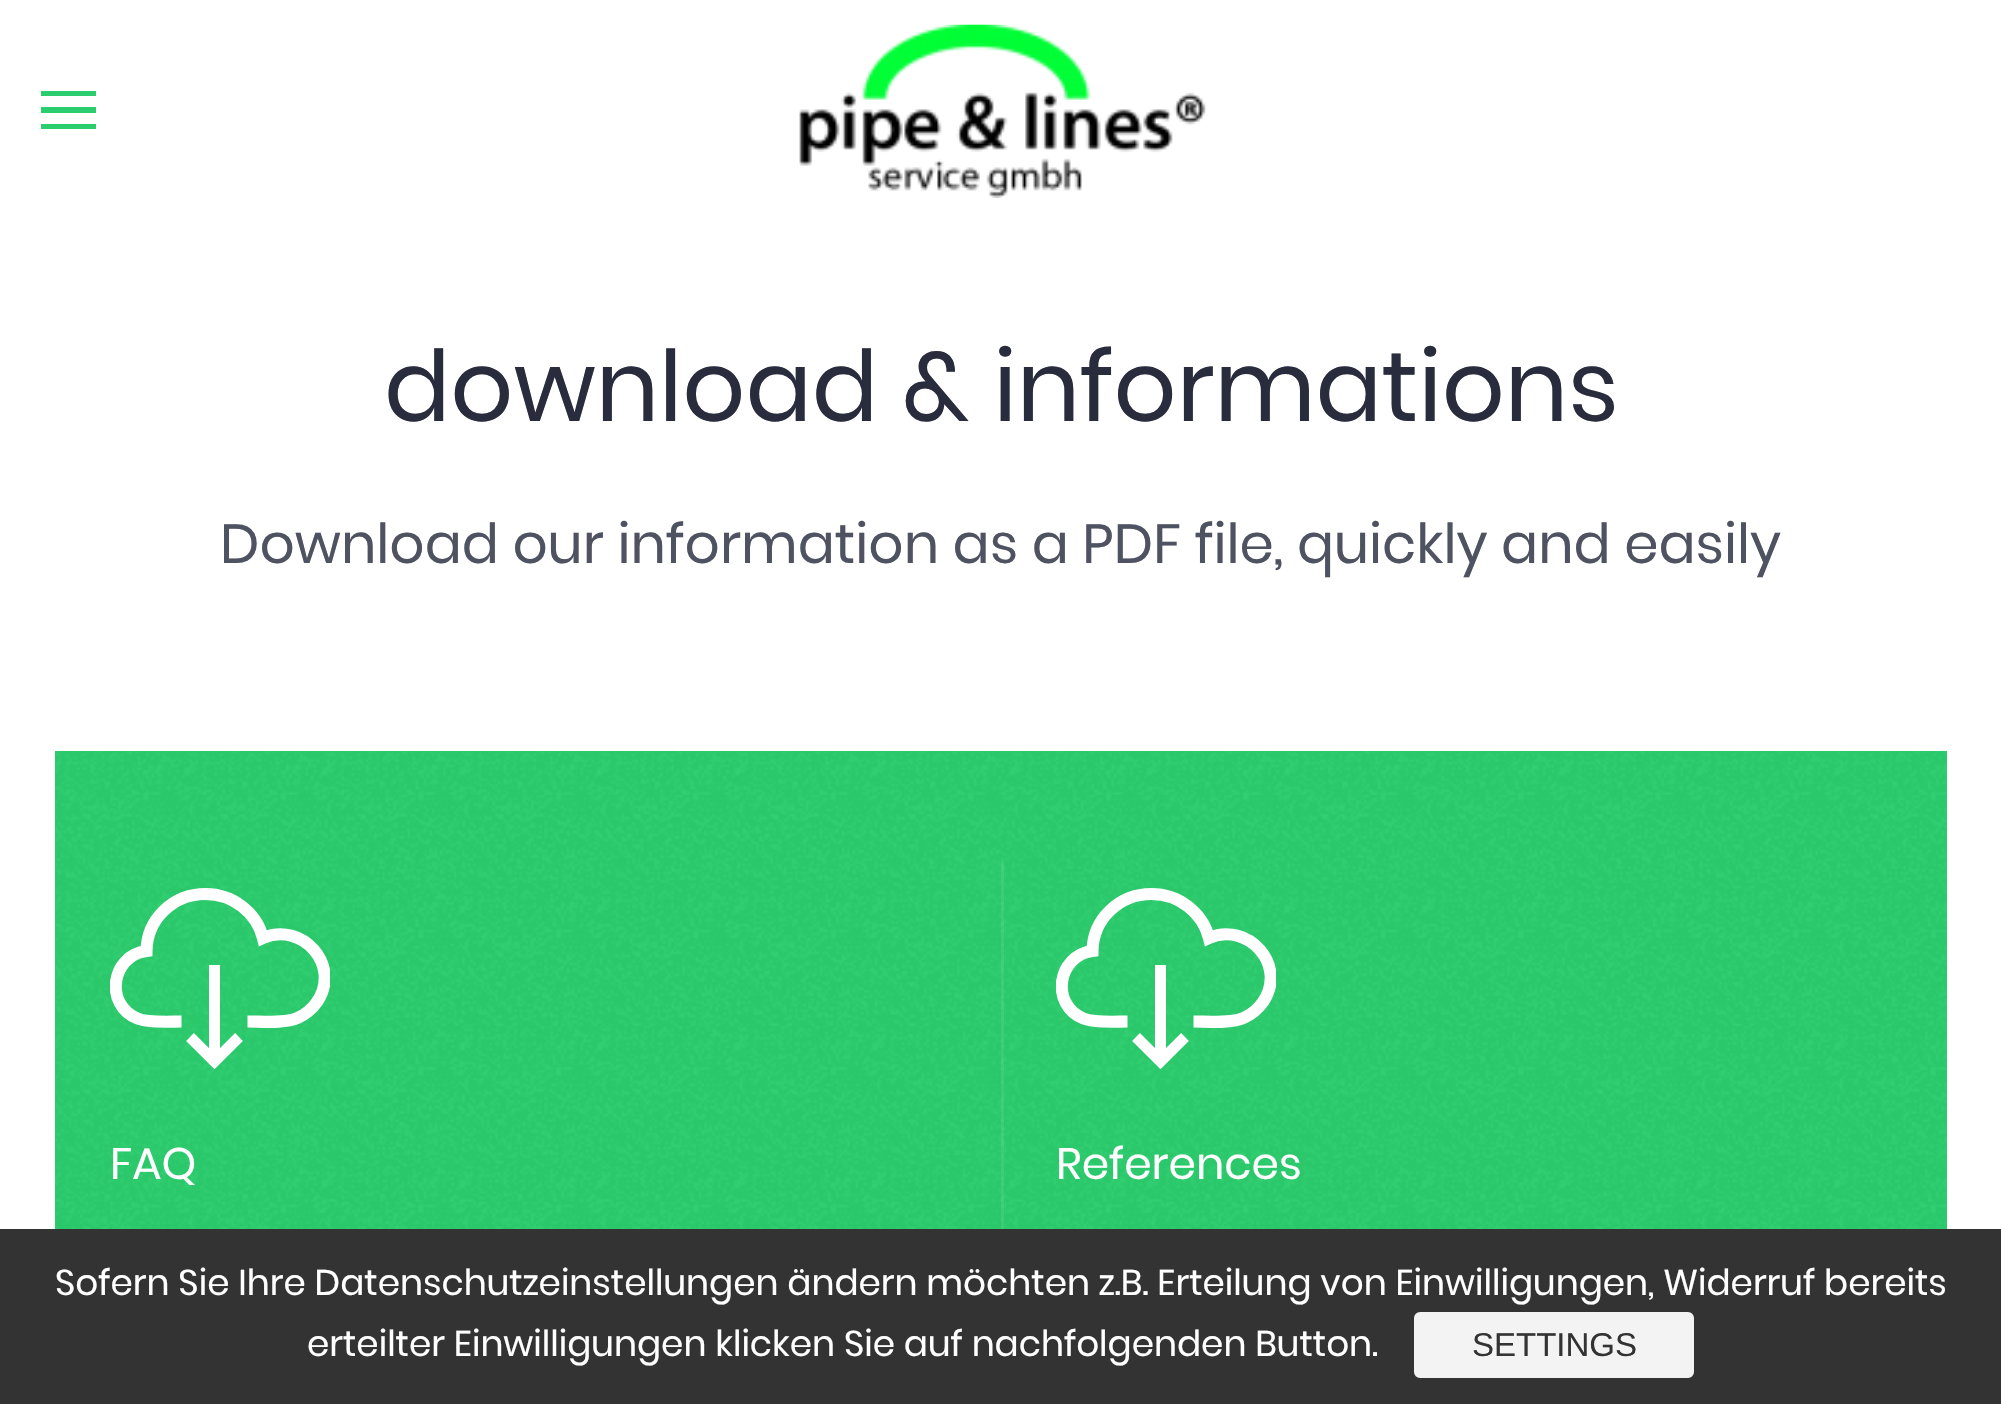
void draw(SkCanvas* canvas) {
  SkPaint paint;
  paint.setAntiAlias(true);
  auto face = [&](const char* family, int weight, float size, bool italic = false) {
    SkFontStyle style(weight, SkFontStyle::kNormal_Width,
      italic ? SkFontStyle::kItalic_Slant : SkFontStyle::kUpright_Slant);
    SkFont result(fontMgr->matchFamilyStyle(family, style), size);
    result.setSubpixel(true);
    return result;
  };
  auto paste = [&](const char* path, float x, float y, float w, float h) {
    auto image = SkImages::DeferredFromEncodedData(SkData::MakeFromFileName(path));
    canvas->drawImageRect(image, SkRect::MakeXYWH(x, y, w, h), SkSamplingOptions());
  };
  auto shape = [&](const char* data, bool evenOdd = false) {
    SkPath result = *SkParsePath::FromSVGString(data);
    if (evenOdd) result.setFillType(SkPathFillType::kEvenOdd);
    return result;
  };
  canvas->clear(0xffffffff);
  {
    const struct { float x, y, w, h; SkColor color; } items[] = {
      {41, 91, 55, 5, 0xff2ccd6e},
      {41, 107, 55, 6, 0xff2ccd6e},
      {41, 124, 55, 5, 0xff2ccd6e},
    };
    for (auto [x, y, w, h, color] : items) {
      paint.setColor(color);
      canvas->drawRect(SkRect::MakeXYWH(x, y, w, h), paint);
    }
  }
  paste("img/1.png", 799, 24, 407, 174);
  canvas->drawRect(SkRect::MakeXYWH(55, 751, 1892, 478), paint);
  paste("img/2.png", 55, 751, 1892, 478);
  canvas->save();
  canvas->clipRect(SkRect::MakeXYWH(110, 861, 220, 220));
  paint.setStroke(true);
  paint.setStrokeWidth(12.1f);
  paint.setColor(0xffffffff);
  canvas->drawPath(shape("M181.5 1021.5C169 1021.5 148 1023 137.5 1018.5C104 1005 111 955.5 146.5 951C147 919 173 894 205.5 894C233 894 256.5 912.5 263 938C301.5 921 342 965 317 1002C312 1009 305.5 1014.5 297.5 1018C285 1023.5 262 1021.5 247.5 1021.5"), paint);
  canvas->restore();
  paint.setStrokeWidth(11);
  canvas->drawPath(shape("M239 1037L214.5 1061.5L190 1037"), paint);
  paint.setStroke(false);
  canvas->drawRect(SkRect::MakeXYWH(209, 965, 11, 89), paint);
  paint.setColor(0x14ffffff);
  canvas->drawRect(SkRect::MakeXYWH(1001, 861, 3, 368), paint);
  canvas->save();
  canvas->clipRect(SkRect::MakeXYWH(1056, 861, 220, 220));
  paint.setStroke(true);
  paint.setStrokeWidth(12.1f);
  paint.setColor(0xffffffff);
  canvas->drawPath(shape("M1127.5 1021.5C1115 1021.5 1094 1023 1083.5 1018.5C1050 1005 1057 955.5 1092.5 951C1093 919 1119 894 1151.5 894C1179 894 1202.5 912.5 1209 938C1247.5 921 1288 965 1263 1002C1258 1009 1251.5 1014.5 1243.5 1018C1231 1023.5 1208 1021.5 1193.5 1021.5"), paint);
  canvas->restore();
  paint.setStrokeWidth(11);
  canvas->drawPath(shape("M1185 1037L1160.5 1061.5L1136 1037"), paint);
  paint.setStroke(false);
  canvas->drawRect(SkRect::MakeXYWH(1155, 965, 11, 89), paint);
  paint.setColor(0xff333333);
  canvas->drawRect(SkRect::MakeXYWH(0, 1229, 2001, 175), paint);
  paint.setColor(0xfff3f3f3);
  canvas->drawRoundRect(SkRect::MakeXYWH(1415.5f, 1313.5f, 277, 63), 4.5f, 4.5f, paint);
  paint.setStroke(true);
  paint.setStrokeWidth(3);
  canvas->drawRoundRect(SkRect::MakeXYWH(1415.5f, 1313.5f, 277, 63), 4.5f, 4.5f, paint);
  auto f0 = face("Poppins", 400, 98.25f);
  paint.setStroke(false);
  paint.setColor(0xff292c3d);
  canvas->drawString("download & informations", 384, 421, f0, paint);
  auto f1 = face("Poppins", 400, 55);
  paint.setColor(0xff4f5260);
  canvas->drawString("Download our information as a PDF file, quickly and easily", 220, 563, f1, paint);
  auto f2 = face("Poppins", 400, 44);
  paint.setColor(0xffffffff);
  canvas->drawString("FAQ", 110, 1179, f2, paint);
  canvas->drawString("References", 1056, 1179, f2, paint);
  auto f3 = face("Poppins", 400, 35.75f);
  canvas->drawString("Sofern Sie Ihre Datenschutzeinstellungen ändern möchten z.B. Erteilung von Einwilligungen, Widerruf bereits", 55, 1295, f3, paint);
  canvas->drawString("erteilter Einwilligungen klicken Sie auf nachfolgenden Button.", 307, 1356, f3, paint);
  auto f4 = face("Liberation Sans", 400, 33);
  paint.setColor(0xff333333);
  canvas->drawString("SETTINGS", 1472, 1356, f4, paint);
}
